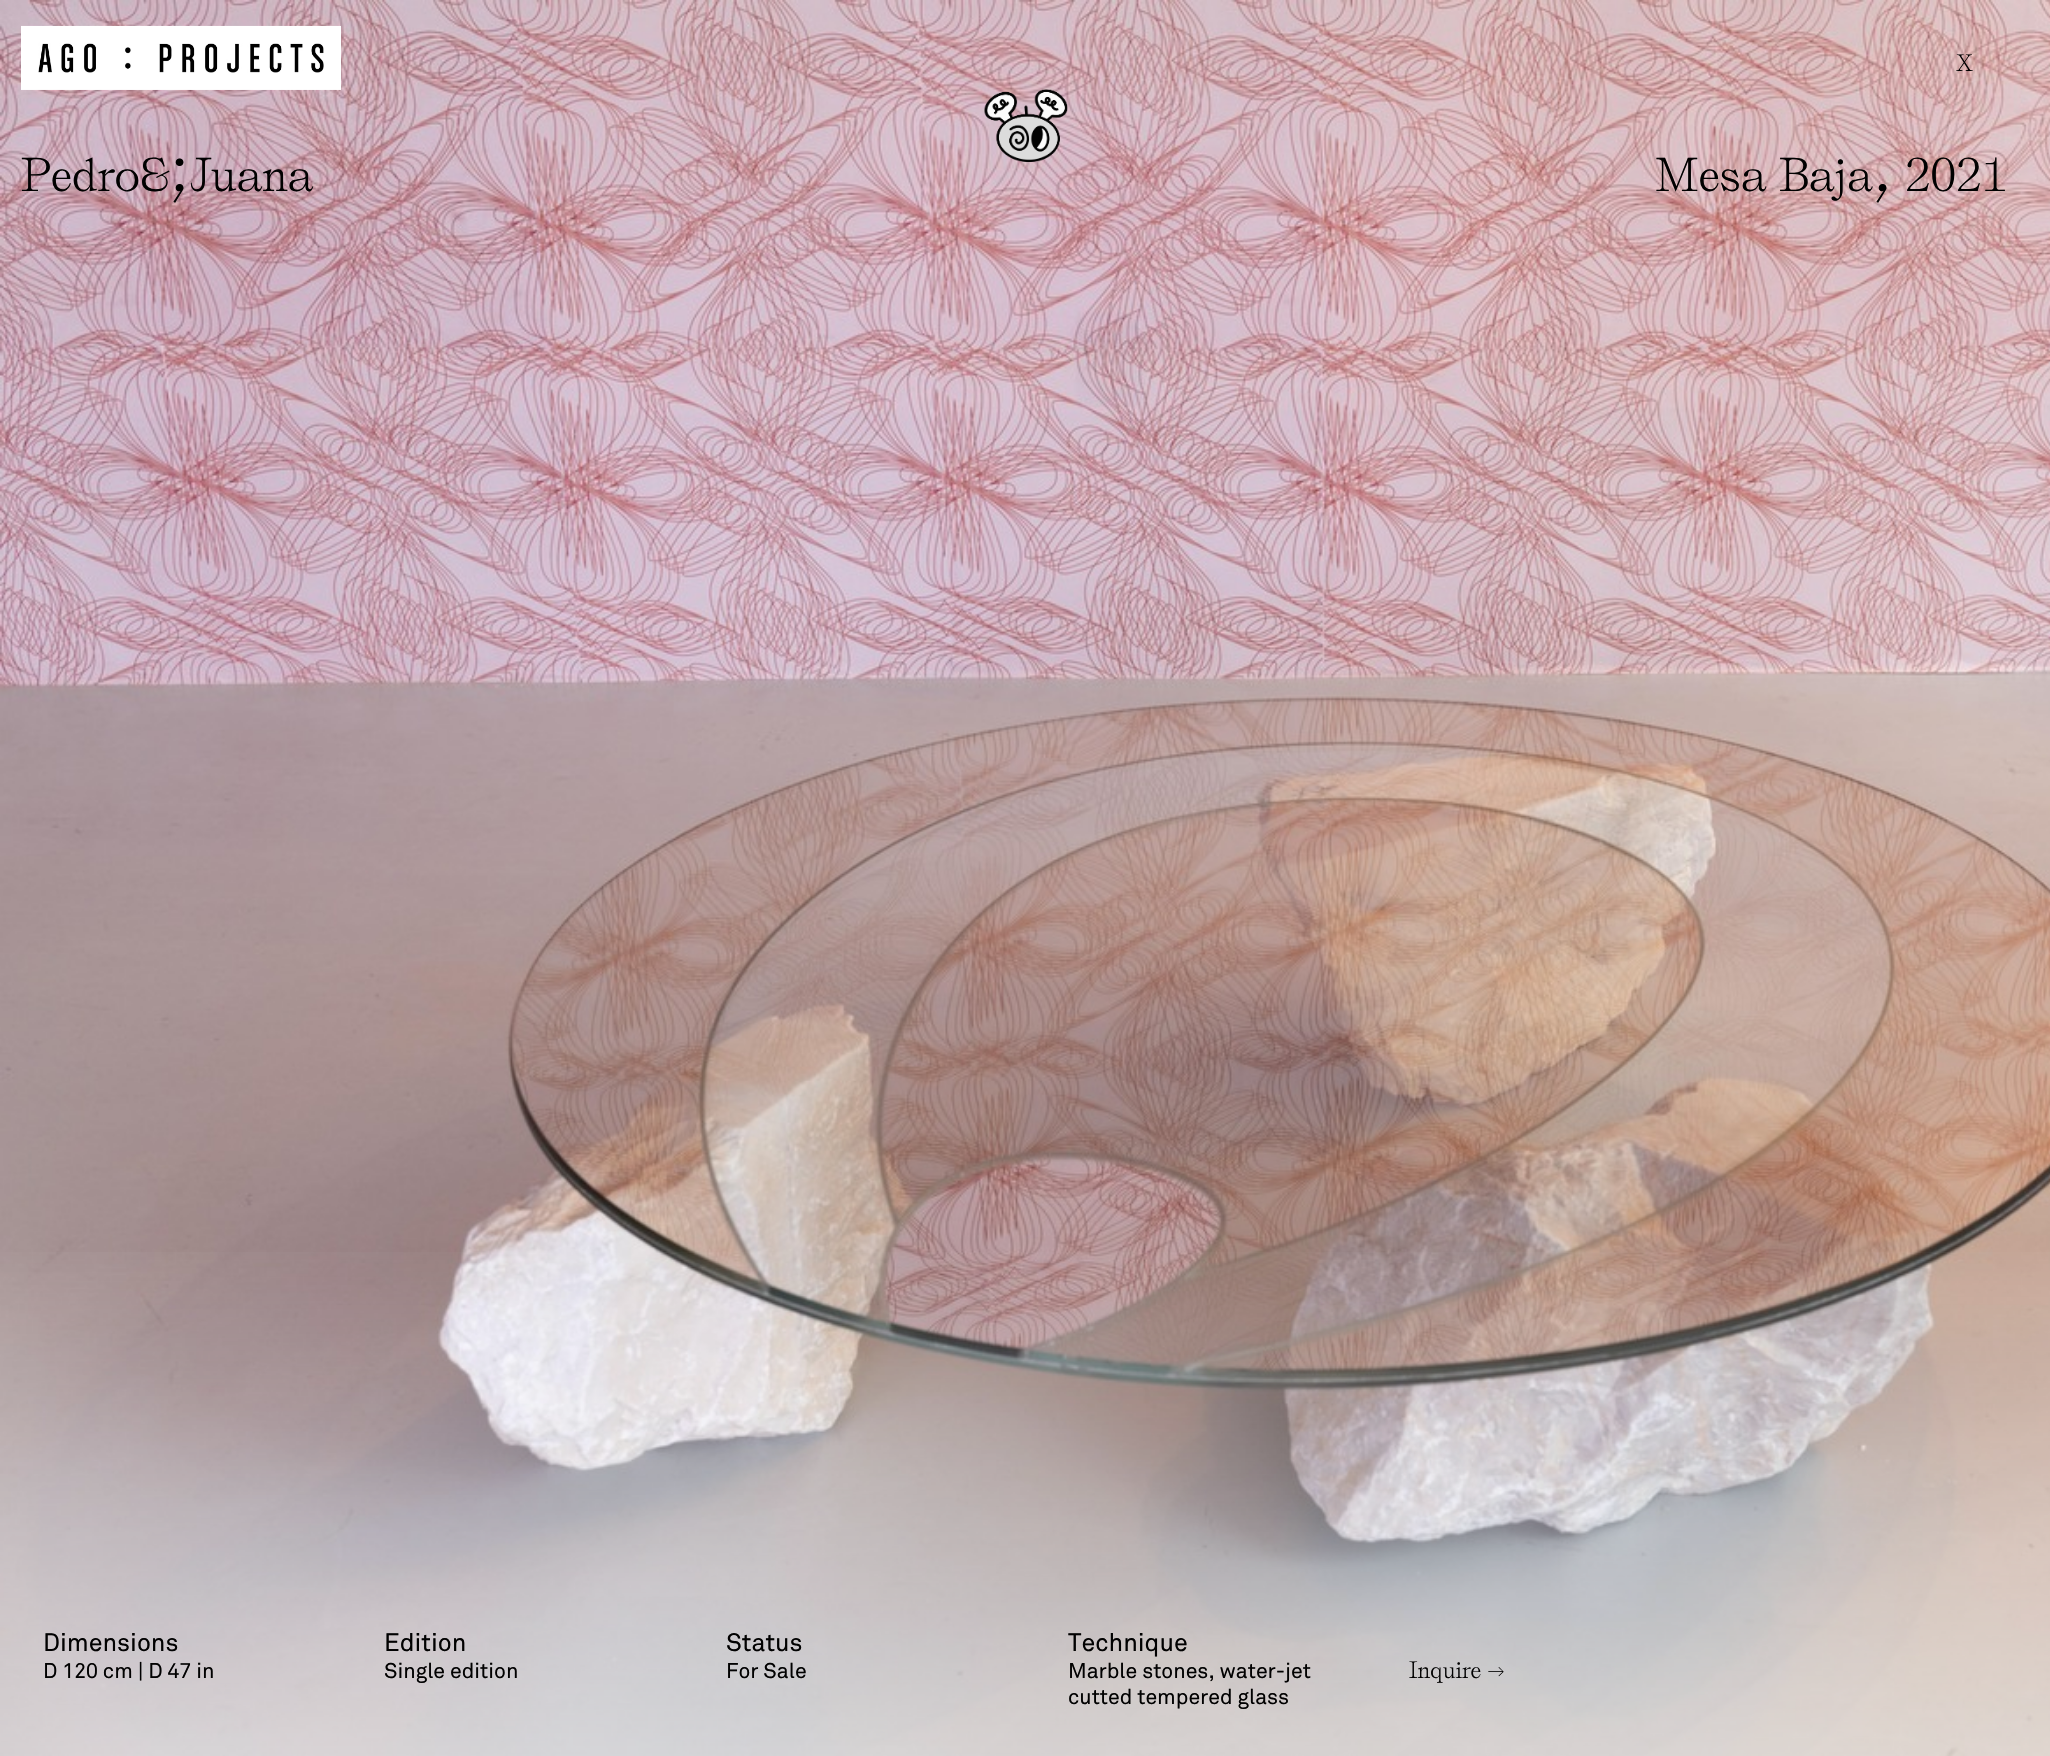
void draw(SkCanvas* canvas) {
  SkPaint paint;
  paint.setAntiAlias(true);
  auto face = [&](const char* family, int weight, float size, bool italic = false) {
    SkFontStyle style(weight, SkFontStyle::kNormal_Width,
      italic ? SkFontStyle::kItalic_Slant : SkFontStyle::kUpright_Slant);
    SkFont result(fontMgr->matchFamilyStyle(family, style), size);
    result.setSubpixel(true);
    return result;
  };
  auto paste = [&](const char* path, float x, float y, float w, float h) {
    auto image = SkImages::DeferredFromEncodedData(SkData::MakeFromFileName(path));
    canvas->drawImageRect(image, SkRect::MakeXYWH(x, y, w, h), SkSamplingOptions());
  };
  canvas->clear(0xffffffff);
  paste("img/1.png", 0, 0, 2050, 1756);
  paste("img/2.png", 21, 25, 320, 65);
  {
    const SkColor colors[] = {0x80ffffff, 0x00ffffff};
    const float stops[] = {0, 0.3f};
    const SkPoint ends[] = {{1316, 1756}, {1316, 0}};
    paint.setShader(SkGradientShader::MakeLinear(ends, colors, stops, 2, SkTileMode::kClamp));
    paint.setAlpha(255);
  }
  canvas->drawRect(SkRect::MakeXYWH(0, 1252, 2050, 504), paint);
  paste("img/3.png", 984, 89, 84, 73);
  auto f0 = face("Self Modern", 400, 21.25f);
  paint.setShader(nullptr);
  paint.setColor(0xff010101);
  canvas->drawString("X", 1956, 71, f0, paint);
  auto f1 = face("Self Modern", 400, 42.5f);
  canvas->drawString("Pedro&", 21, 191, f1, paint);
  auto f2 = face("Self Modern", 400, 64);
  canvas->drawString(";", 170, 191, f2, paint);
  canvas->drawString("Juana", 190, 191, f1, paint);
  canvas->drawString("Mesa Baja", 1656, 191, f1, paint);
  canvas->drawString(",", 1873, 191, f2, paint);
  canvas->drawString("2021", 1905, 191, f1, paint);
  auto f3 = face("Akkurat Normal", 500, 25);
  canvas->drawString("Dimensions", 43, 1651, f3, paint);
  auto f4 = face("Akkurat Normal", 500, 21.25f);
  canvas->drawString("D 120 cm | D 47 in", 43, 1678, f4, paint);
  canvas->drawString("Edition", 384, 1651, f3, paint);
  canvas->drawString("Single edition", 384, 1678, f4, paint);
  canvas->drawString("Status", 726, 1651, f3, paint);
  canvas->drawString("For Sale", 726, 1678, f4, paint);
  canvas->drawString("Technique", 1068, 1651, f3, paint);
  canvas->drawString("Marble stones, water-jet", 1068, 1678, f4, paint);
  canvas->drawString("cutted tempered glass", 1068, 1704, f4, paint);
  canvas->drawString("Inquire →", 1409, 1678, f0, paint);
}
